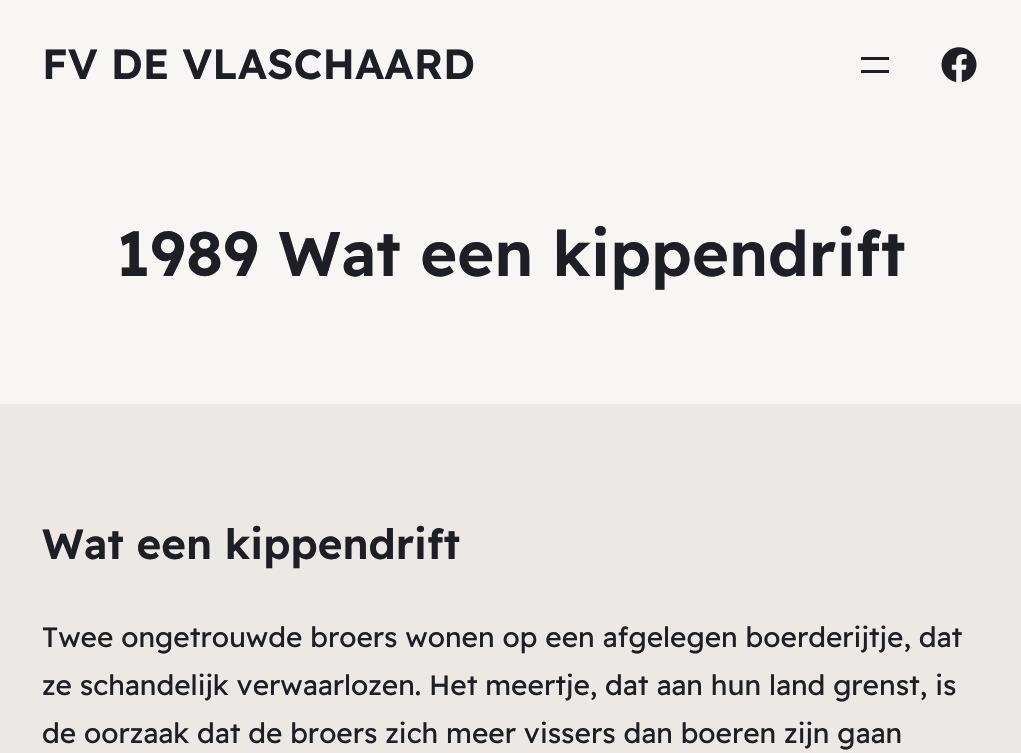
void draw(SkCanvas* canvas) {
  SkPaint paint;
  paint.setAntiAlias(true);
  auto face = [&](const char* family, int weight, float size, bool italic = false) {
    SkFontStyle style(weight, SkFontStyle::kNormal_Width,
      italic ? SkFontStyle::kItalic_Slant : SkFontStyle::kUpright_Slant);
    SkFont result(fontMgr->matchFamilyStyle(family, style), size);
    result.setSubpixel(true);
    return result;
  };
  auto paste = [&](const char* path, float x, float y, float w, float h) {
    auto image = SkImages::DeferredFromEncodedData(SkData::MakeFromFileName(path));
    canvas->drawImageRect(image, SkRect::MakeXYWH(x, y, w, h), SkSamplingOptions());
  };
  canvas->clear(0xffebe8e6);
  {
    const struct { float x, y, w, h; SkColor color; } items[] = {
      {0, 0, 1021, 404, 0xfff7f6f5},
      {861, 57, 28, 3, 0xff1d1f25},
      {861, 70, 28, 3, 0xff1d1f25},
    };
    for (auto [x, y, w, h, color] : items) {
      paint.setColor(color);
      canvas->drawRect(SkRect::MakeXYWH(x, y, w, h), paint);
    }
  }
  paste("img/1.png", 941, 47, 36, 35);
  auto f0 = face("Readex Pro", 600, 42);
  canvas->drawString("FV DE VLASCHAARD", 42, 79, f0, paint);
  auto f1 = face("Readex Pro", 600, 63);
  canvas->drawString("1989 Wat een kippendrift", 116, 276, f1, paint);
  canvas->drawString("Wat een kippendrift", 42, 559, f0, paint);
  auto f2 = face("Readex Pro", 400, 28);
  {
    const struct { const char* s; float x, y; } items[] = {
      {"Twee ongetrouwde broers wonen op een afgelegen boerderijtje, dat", 42, 647},
      {"ze schandelijk verwaarlozen. Het meertje, dat aan hun land grenst, is", 42, 695},
      {"de oorzaak dat de broers zich meer vissers dan boeren zijn gaan", 42, 743},
    };
    for (auto [s, x, y] : items) {
      canvas->drawString(s, x, y, f2, paint);
    }
  }
}
